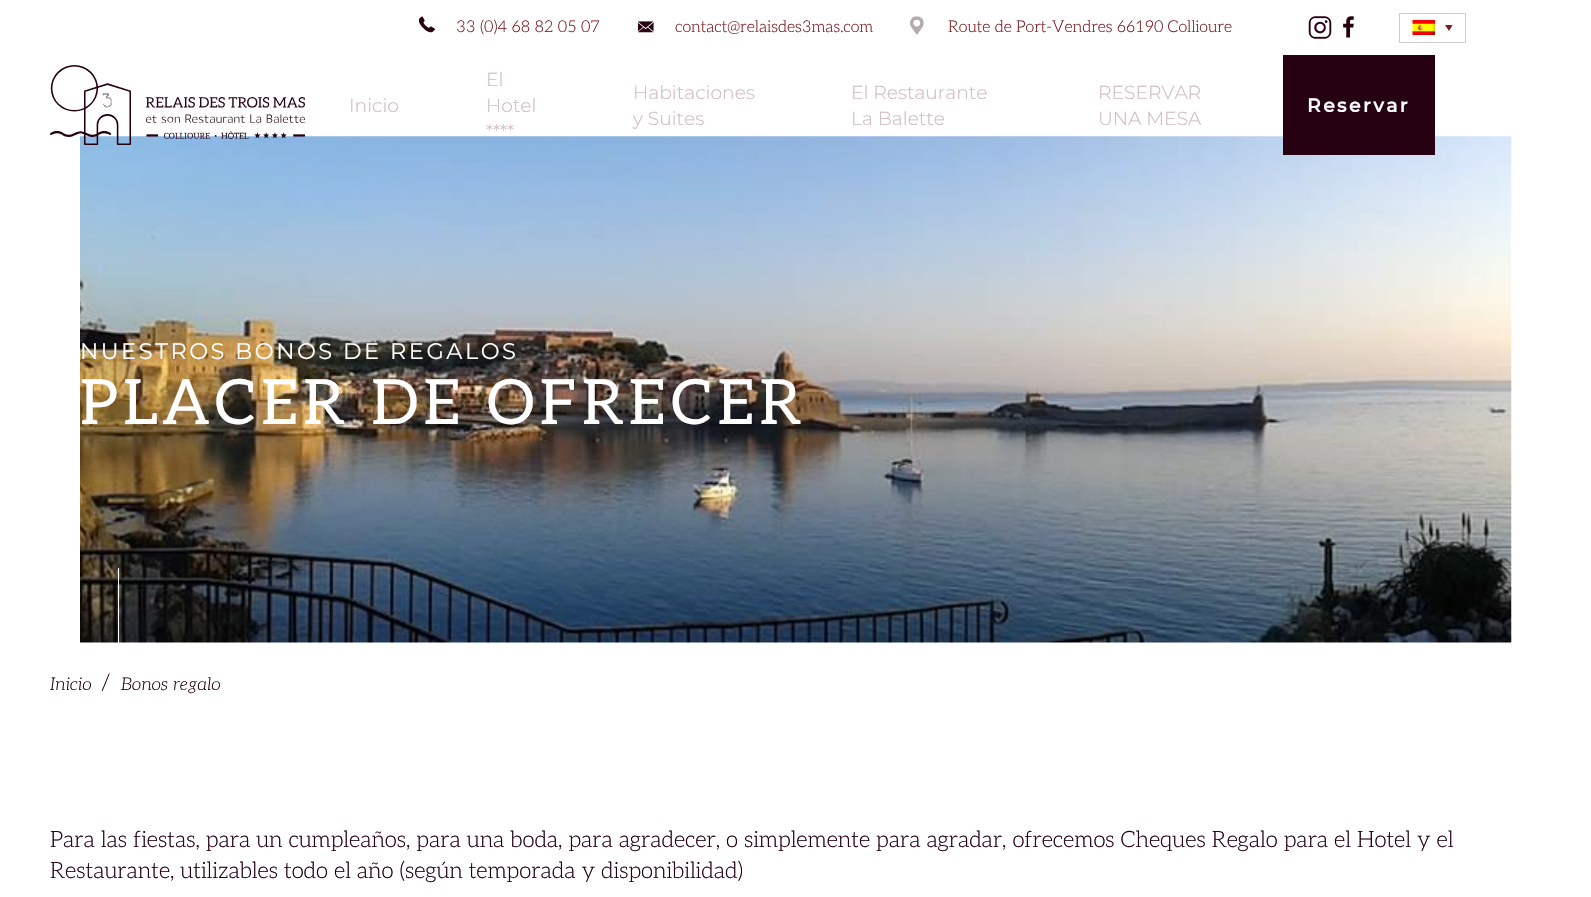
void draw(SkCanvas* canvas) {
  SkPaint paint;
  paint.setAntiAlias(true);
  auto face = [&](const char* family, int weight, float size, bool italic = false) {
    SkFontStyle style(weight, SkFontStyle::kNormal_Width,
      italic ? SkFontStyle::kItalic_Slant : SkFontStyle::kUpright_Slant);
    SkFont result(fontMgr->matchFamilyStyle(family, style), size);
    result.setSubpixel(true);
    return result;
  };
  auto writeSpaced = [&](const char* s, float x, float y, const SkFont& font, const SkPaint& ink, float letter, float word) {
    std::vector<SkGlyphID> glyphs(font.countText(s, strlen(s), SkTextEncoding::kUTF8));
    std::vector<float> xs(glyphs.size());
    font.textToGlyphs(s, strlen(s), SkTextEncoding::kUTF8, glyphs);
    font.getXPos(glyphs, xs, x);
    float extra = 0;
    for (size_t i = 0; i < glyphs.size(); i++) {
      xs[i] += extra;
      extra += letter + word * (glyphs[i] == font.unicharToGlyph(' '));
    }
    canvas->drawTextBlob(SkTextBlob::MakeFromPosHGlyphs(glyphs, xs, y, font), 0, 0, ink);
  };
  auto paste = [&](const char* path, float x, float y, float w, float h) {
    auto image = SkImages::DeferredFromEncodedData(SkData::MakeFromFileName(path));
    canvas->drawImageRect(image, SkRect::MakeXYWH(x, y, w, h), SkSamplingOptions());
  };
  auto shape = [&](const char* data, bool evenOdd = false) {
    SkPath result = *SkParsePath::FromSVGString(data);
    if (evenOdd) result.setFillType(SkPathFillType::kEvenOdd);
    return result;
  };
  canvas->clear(0xffffffff);
  paste("img/1.png", 419, 16, 16, 17);
  paste("img/2.png", 638, 21, 16, 12);
  paste("img/3.png", 910, 16, 14, 19);
  paste("img/4.png", 1308, 16, 24, 23);
  paste("img/5.png", 1343, 16, 11, 22);
  paint.setStroke(true);
  paint.setStrokeWidth(1);
  paint.setColor(0xffcdcdcd);
  canvas->drawRect(SkRect::MakeXYWH(1399.5f, 13.5f, 66, 29), paint);
  paste("img/6.png", 1412, 20, 23, 15);
  paint.setStroke(false);
  paint.setColor(0xff7c1a1e);
  canvas->drawPath(shape("M1445 25H1452.5L1449 31Z"), paint);
  paste("img/8.png", 80, 136, 1432, 507);
  paste("img/7.png", 50, 65, 255, 80);
  paint.setColor(0xff260111);
  canvas->drawRect(SkRect::MakeXYWH(1283, 55, 152, 100), paint);
  paint.setColor(0xffffffff);
  canvas->drawRect(SkRect::MakeXYWH(118, 568, 1, 75), paint);
  auto f0 = face("Aleo", 300, 16.25f);
  paint.setColor(0xff7c1a1e);
  {
    const struct { const char* s; float x, y; } items[] = {
      {"33 (0)4 68 82 05 07", 456, 32},
      {"contact@relaisdes3mas.com", 675, 32},
      {"Route de Port-Vendres 66190 Collioure", 948, 32},
    };
    for (auto [s, x, y] : items) {
      canvas->drawString(s, x, y, f0, paint);
    }
  }
  auto f1 = face("Montserrat", 300, 18.75f);
  paint.setColor(0xffd1bbc4);
  {
    const struct { const char* s; float x, y; } items[] = {
      {"Inicio", 349, 112},
      {"El", 486, 86},
      {"Hotel", 486, 112},
      {"****", 486, 138},
      {"Habitaciones", 633, 99},
      {"y Suites", 633, 125},
      {"El Restaurante", 851, 99},
      {"La Balette", 851, 125},
      {"RESERVAR", 1098, 99},
      {"UNA MESA", 1098, 125},
    };
    for (auto [s, x, y] : items) {
      canvas->drawString(s, x, y, f1, paint);
    }
  }
  auto f2 = face("Montserrat", 700, 18.75f);
  paint.setColor(0xffffffff);
  writeSpaced("Reservar", 1307, 112, f2, paint, 2.5f, 0);
  auto f3 = face("Montserrat", 400, 22.5f);
  writeSpaced("NUESTROS BONOS DE REGALOS", 80, 359, f3, paint, 2.5f, 0);
  auto f4 = face("Aleo", 400, 62.5f);
  writeSpaced("PLACER DE OFRECER", 80, 424, f4, paint, 5, 0);
  auto f5 = face("Aleo", 300, 17.5f, true);
  paint.setColor(0xff260111);
  canvas->drawString("Inicio", 50, 690, f5, paint);
  auto f6 = face("Aleo", 300, 22.5f);
  canvas->drawString("/", 101, 690, f6, paint);
  canvas->drawString("Bonos regalo", 121, 690, f5, paint);
  canvas->drawString("Para las fiestas, para un cumpleaños, para una boda, para agradecer, o simplemente para agradar, ofrecemos Cheques Regalo para el Hotel y el", 50, 847, f6, paint);
  canvas->drawString("Restaurante, utilizables todo el año (según temporada y disponibilidad)", 50, 878, f6, paint);
}
